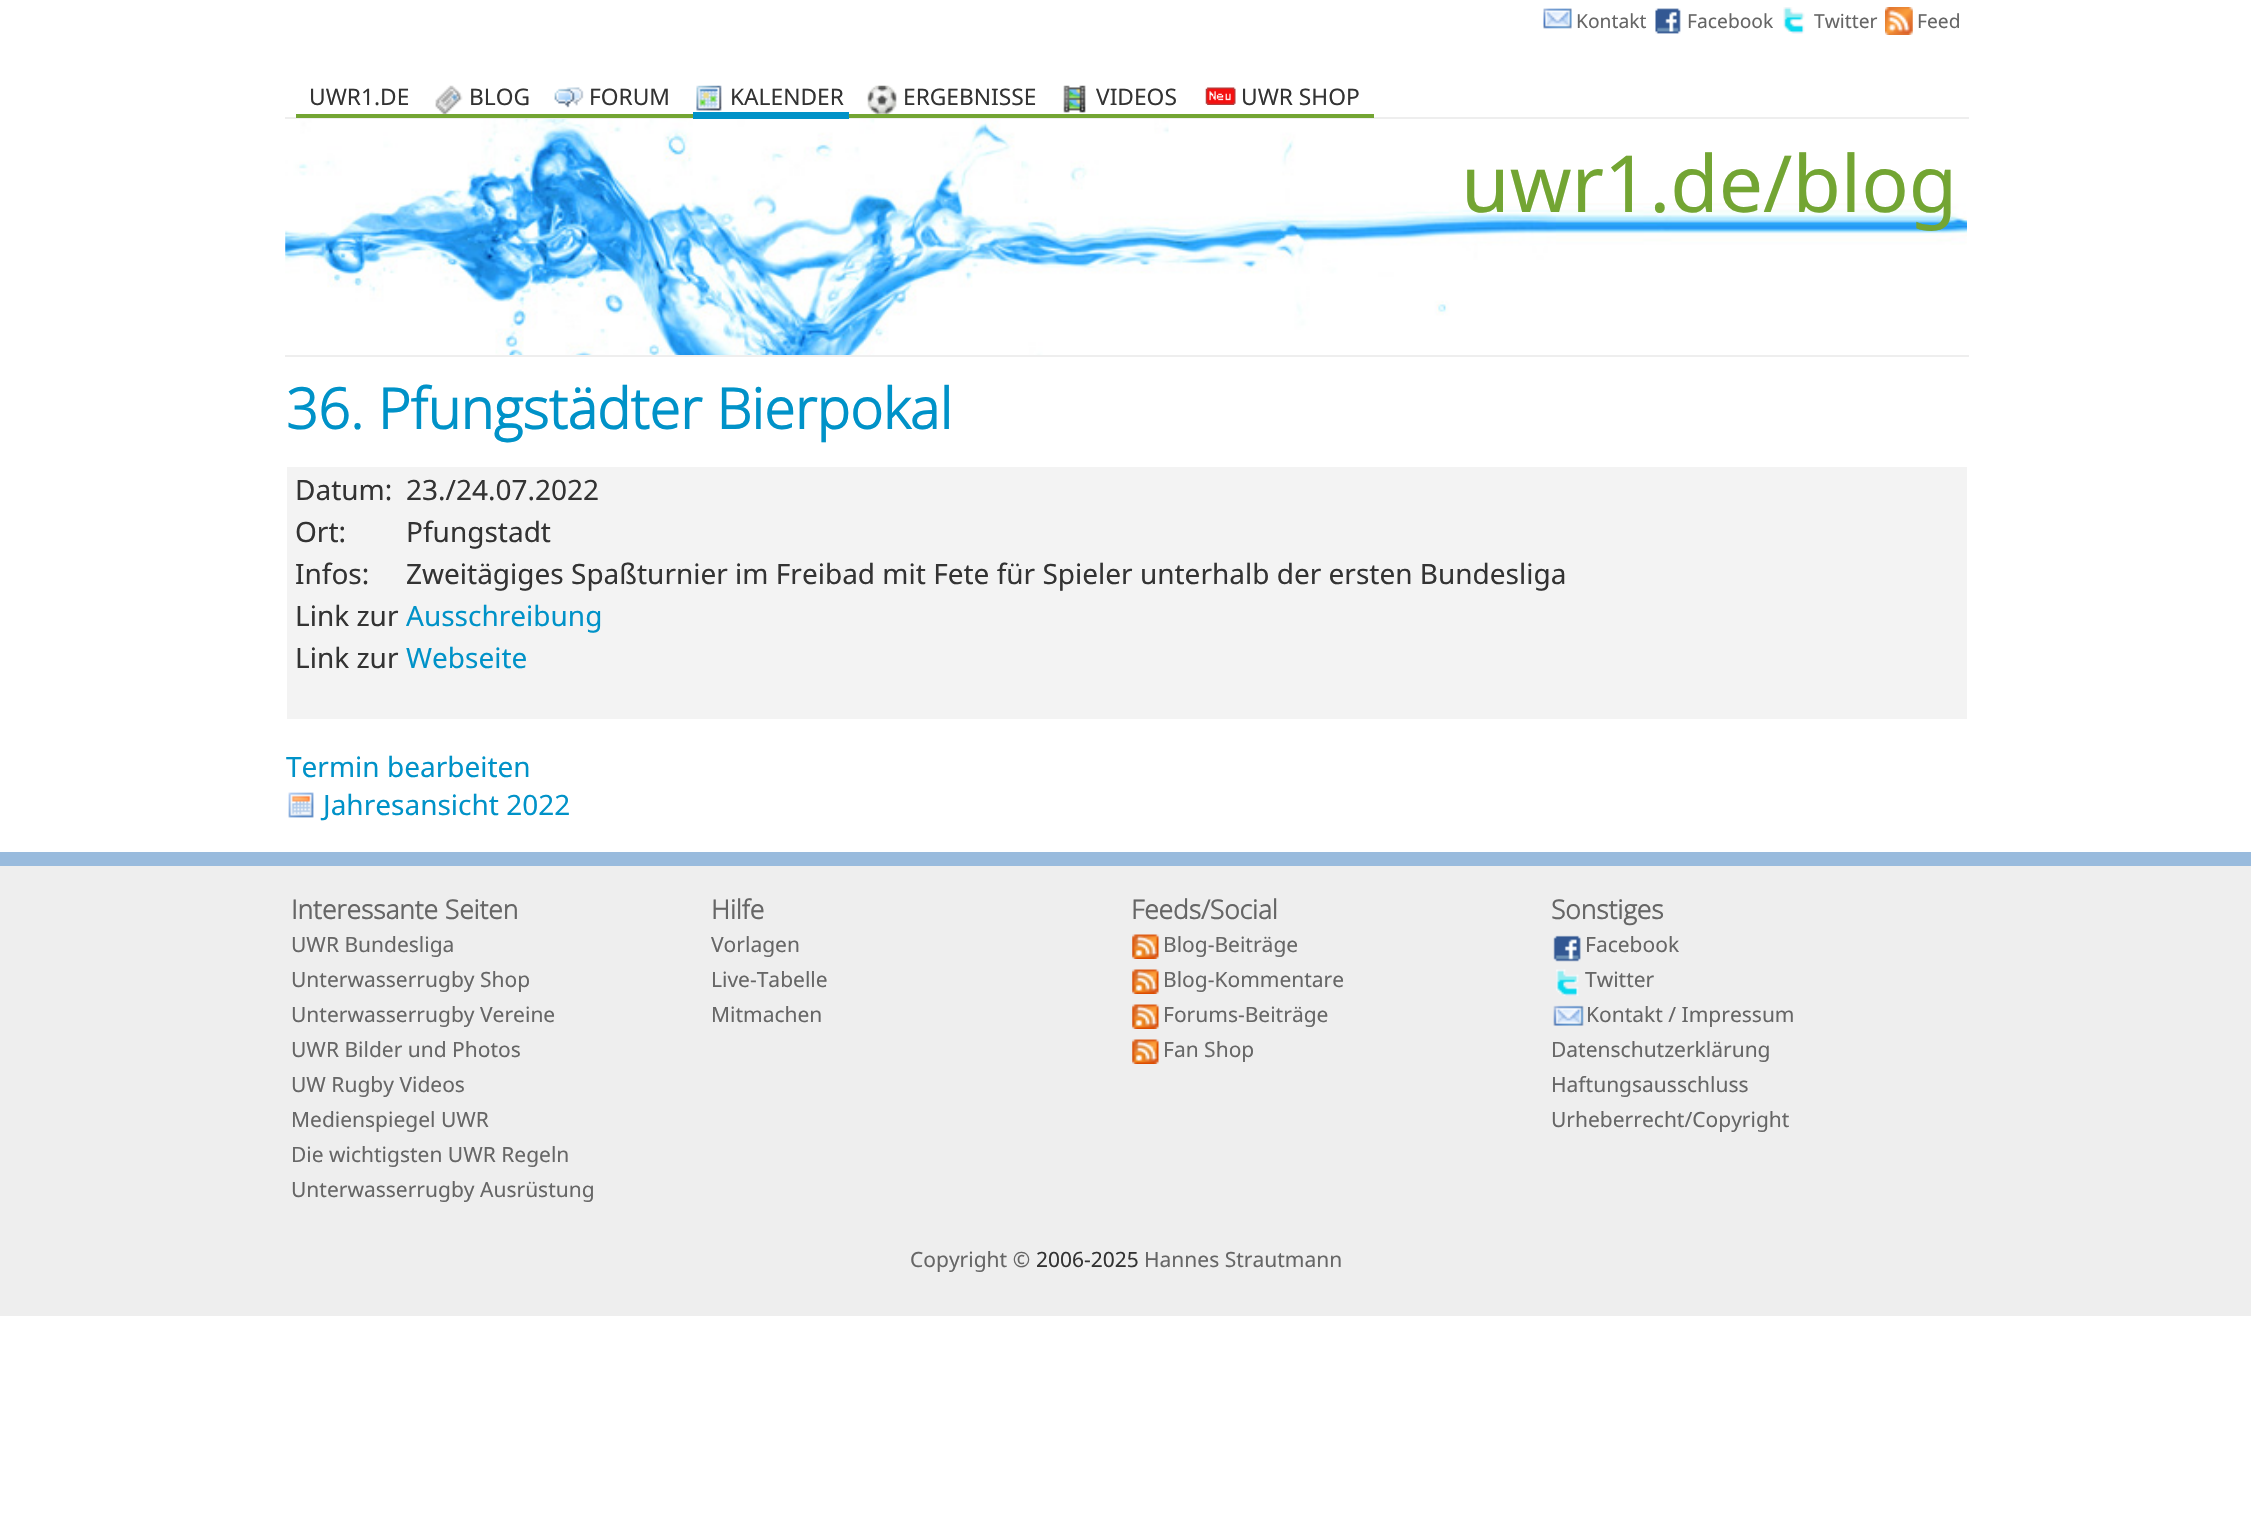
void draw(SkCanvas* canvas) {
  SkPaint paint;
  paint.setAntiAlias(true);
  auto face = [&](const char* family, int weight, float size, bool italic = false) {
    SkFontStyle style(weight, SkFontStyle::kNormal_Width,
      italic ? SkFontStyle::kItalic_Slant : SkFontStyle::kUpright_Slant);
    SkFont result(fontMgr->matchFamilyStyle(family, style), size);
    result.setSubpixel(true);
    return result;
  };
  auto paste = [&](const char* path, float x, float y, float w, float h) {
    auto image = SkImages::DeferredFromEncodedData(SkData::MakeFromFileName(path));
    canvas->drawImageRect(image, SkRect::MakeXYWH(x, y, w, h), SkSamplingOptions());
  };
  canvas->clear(0xffffffff);
  paste("img/1.png", 1543, 8, 29, 21);
  paste("img/2.png", 1655, 8, 26, 26);
  paste("img/3.png", 1783, 7, 22, 27);
  paste("img/4.png", 1885, 7, 28, 28);
  paint.setColor(0xffeeeeee);
  canvas->drawRect(SkRect::MakeXYWH(285, 117, 1684, 2), paint);
  paint.setColor(0xff73a533);
  canvas->drawRect(SkRect::MakeXYWH(296, 114, 1078, 4), paint);
  paste("img/5.png", 435, 85, 28, 29);
  paste("img/6.png", 554, 87, 30, 21);
  paste("img/7.png", 696, 85, 26, 26);
  paint.setColor(0xff0092c8);
  canvas->drawRect(SkRect::MakeXYWH(693, 112, 156, 7), paint);
  paste("img/8.png", 867, 85, 30, 29);
  paste("img/9.png", 1063, 85, 23, 28);
  paste("img/10.png", 1205, 87, 31, 18);
  paste("img/11.png", 1555, 203, 412, 42);
  paste("img/12.png", 285, 119, 1271, 236);
  paint.setColor(0xffeeeeee);
  canvas->drawRect(SkRect::MakeXYWH(285, 355, 1684, 2), paint);
  paint.setColor(0xfff3f3f3);
  canvas->drawRect(SkRect::MakeXYWH(287, 467, 1680, 252), paint);
  paste("img/13.png", 288, 792, 26, 26);
  paint.setColor(0xffeeeeee);
  canvas->drawRect(SkRect::MakeXYWH(0, 866, 2251, 450), paint);
  paint.setColor(0xff99bbdd);
  canvas->drawRect(SkRect::MakeXYWH(0, 852, 2251, 14), paint);
  paste("img/14.png", 1132, 934, 27, 25);
  paste("img/14.png", 1132, 969, 27, 25);
  paste("img/14.png", 1132, 1004, 27, 25);
  paste("img/14.png", 1132, 1039, 27, 25);
  paste("img/15.png", 1553, 935, 28, 27);
  paste("img/16.png", 1556, 969, 23, 27);
  paste("img/17.png", 1553, 1005, 31, 21);
  auto f0 = face("Noto Sans", 400, 19.25f);
  paint.setColor(0xff666666);
  {
    const struct { const char* s; float x, y; } items[] = {
      {"Kontakt", 1576, 28},
      {"Facebook", 1687, 28},
      {"Twitter", 1814, 28},
      {"Feed", 1917, 28},
    };
    for (auto [s, x, y] : items) {
      canvas->drawString(s, x, y, f0, paint);
    }
  }
  auto f1 = face("Noto Sans", 400, 22.75f);
  paint.setColor(0xff333333);
  {
    const struct { const char* s; float x, y; } items[] = {
      {"UWR1.DE", 309, 105},
      {"BLOG", 469, 105},
      {"FORUM", 589, 105},
      {"KALENDER", 730, 105},
      {"ERGEBNISSE", 903, 105},
      {"VIDEOS", 1096, 105},
      {"UWR SHOP", 1241, 105},
    };
    for (auto [s, x, y] : items) {
      canvas->drawString(s, x, y, f1, paint);
    }
  }
  auto f2 = face("Noto Sans", 400, 78.75f);
  paint.setColor(0xff73a533);
  canvas->drawString("uwr1.de/blog", 1461, 212, f2, paint);
  auto f3 = face("Open Sans", 700, 56);
  paint.setColor(0xff0092c8);
  canvas->drawString("36. Pfungstädter Bierpokal", 286, 429, f3, paint);
  auto f4 = face("Noto Sans", 400, 28);
  paint.setColor(0xff333333);
  {
    const struct { const char* s; float x, y; } items[] = {
      {"Datum:", 295, 500},
      {"23./24.07.2022", 406, 500},
      {"Ort:", 295, 542},
      {"Pfungstadt", 406, 542},
      {"Infos:", 295, 584},
      {"Zweitägiges Spaßturnier im Freibad mit Fete für Spieler unterhalb der ersten Bundesliga", 406, 584},
      {"Link zur", 295, 626},
    };
    for (auto [s, x, y] : items) {
      canvas->drawString(s, x, y, f4, paint);
    }
  }
  paint.setColor(0xff0092c8);
  canvas->drawString("Ausschreibung", 406, 626, f4, paint);
  paint.setColor(0xff333333);
  canvas->drawString("Link zur", 295, 668, f4, paint);
  paint.setColor(0xff0092c8);
  {
    const struct { const char* s; float x, y; } items[] = {
      {"Webseite", 406, 668},
      {"Termin bearbeiten", 286, 777},
      {"Jahresansicht 2022", 323, 815},
    };
    for (auto [s, x, y] : items) {
      canvas->drawString(s, x, y, f4, paint);
    }
  }
  auto f5 = face("Open Sans", 700, 26.25f);
  paint.setColor(0xff666666);
  canvas->drawString("Interessante Seiten", 291, 919, f5, paint);
  auto f6 = face("Noto Sans", 400, 21);
  {
    const struct { const char* s; float x, y; } items[] = {
      {"UWR Bundesliga", 291, 952},
      {"Unterwasserrugby Shop", 291, 987},
      {"Unterwasserrugby Vereine", 291, 1022},
      {"UWR Bilder und Photos", 291, 1057},
      {"UW Rugby Videos", 291, 1092},
      {"Medienspiegel UWR", 291, 1127},
      {"Die wichtigsten UWR Regeln", 291, 1162},
      {"Unterwasserrugby Ausrüstung", 291, 1197},
    };
    for (auto [s, x, y] : items) {
      canvas->drawString(s, x, y, f6, paint);
    }
  }
  canvas->drawString("Hilfe", 711, 919, f5, paint);
  {
    const struct { const char* s; float x, y; } items[] = {
      {"Vorlagen", 711, 952},
      {"Live-Tabelle", 711, 987},
      {"Mitmachen", 711, 1022},
    };
    for (auto [s, x, y] : items) {
      canvas->drawString(s, x, y, f6, paint);
    }
  }
  canvas->drawString("Feeds/Social", 1131, 919, f5, paint);
  {
    const struct { const char* s; float x, y; } items[] = {
      {"Blog-Beiträge", 1163, 952},
      {"Blog-Kommentare", 1163, 987},
      {"Forums-Beiträge", 1163, 1022},
      {"Fan Shop", 1163, 1057},
    };
    for (auto [s, x, y] : items) {
      canvas->drawString(s, x, y, f6, paint);
    }
  }
  canvas->drawString("Sonstiges", 1551, 919, f5, paint);
  {
    const struct { const char* s; float x, y; } items[] = {
      {"Facebook", 1585, 952},
      {"Twitter", 1585, 987},
      {"Kontakt / Impressum", 1586, 1022},
      {"Datenschutzerklärung", 1551, 1057},
      {"Haftungsausschluss", 1551, 1092},
      {"Urheberrecht/Copyright", 1551, 1127},
      {"Copyright ©", 910, 1267},
    };
    for (auto [s, x, y] : items) {
      canvas->drawString(s, x, y, f6, paint);
    }
  }
  paint.setColor(0xff333333);
  canvas->drawString("2006-2025", 1036, 1267, f6, paint);
  paint.setColor(0xff666666);
  canvas->drawString("Hannes Strautmann", 1144, 1267, f6, paint);
}
